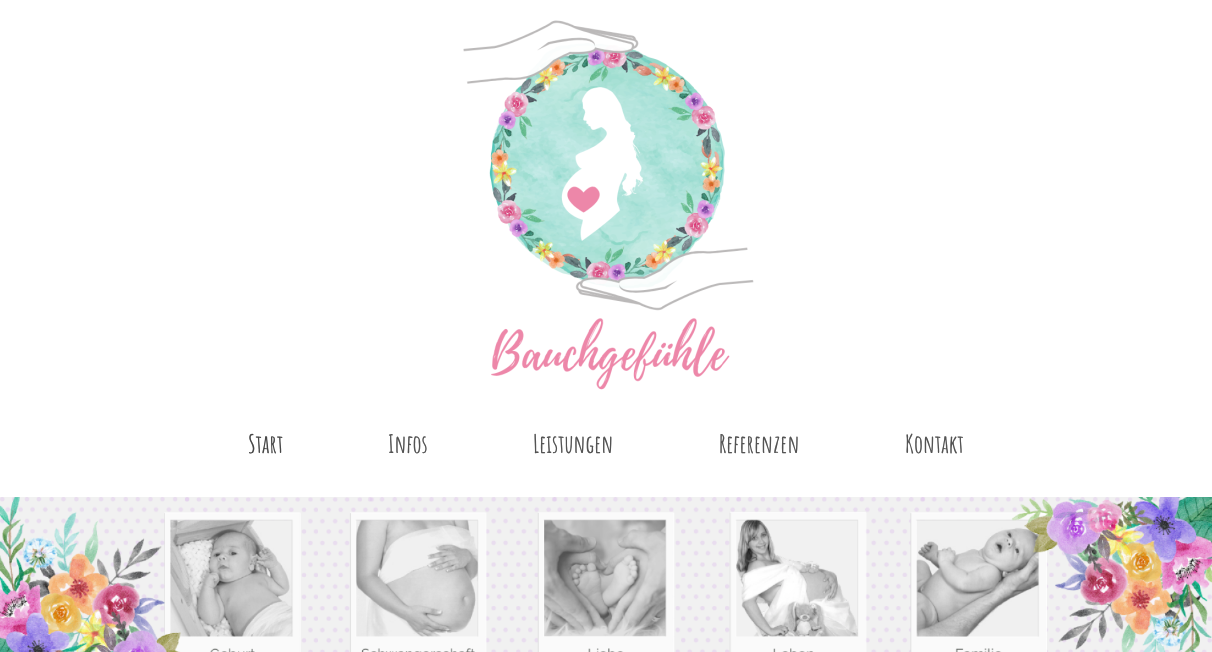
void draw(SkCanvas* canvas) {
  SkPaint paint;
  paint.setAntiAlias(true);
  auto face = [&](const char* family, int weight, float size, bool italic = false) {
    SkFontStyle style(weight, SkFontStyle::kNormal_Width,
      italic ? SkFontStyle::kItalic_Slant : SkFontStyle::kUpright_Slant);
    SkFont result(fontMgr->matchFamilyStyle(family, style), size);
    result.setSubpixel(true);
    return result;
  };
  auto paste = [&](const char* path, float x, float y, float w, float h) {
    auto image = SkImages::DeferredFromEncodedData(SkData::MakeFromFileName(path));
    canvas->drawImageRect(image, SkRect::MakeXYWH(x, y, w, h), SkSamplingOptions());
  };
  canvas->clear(0xffffffff);
  paste("img/1.png", 463, 20, 291, 370);
  paste("img/2.png", 0, 497, 1212, 155);
  auto f0 = face("Amatic SC", 700, 25);
  paint.setColor(0xff474747);
  canvas->drawString("Start", 248, 453, f0, paint);
  paint.setColor(0xff535353);
  {
    const struct { const char* s; float x, y; } items[] = {
      {"Infos", 388, 453},
      {"Leistungen", 533, 453},
      {"Referenzen", 719, 453},
      {"Kontakt", 905, 453},
    };
    for (auto [s, x, y] : items) {
      canvas->drawString(s, x, y, f0, paint);
    }
  }
}
